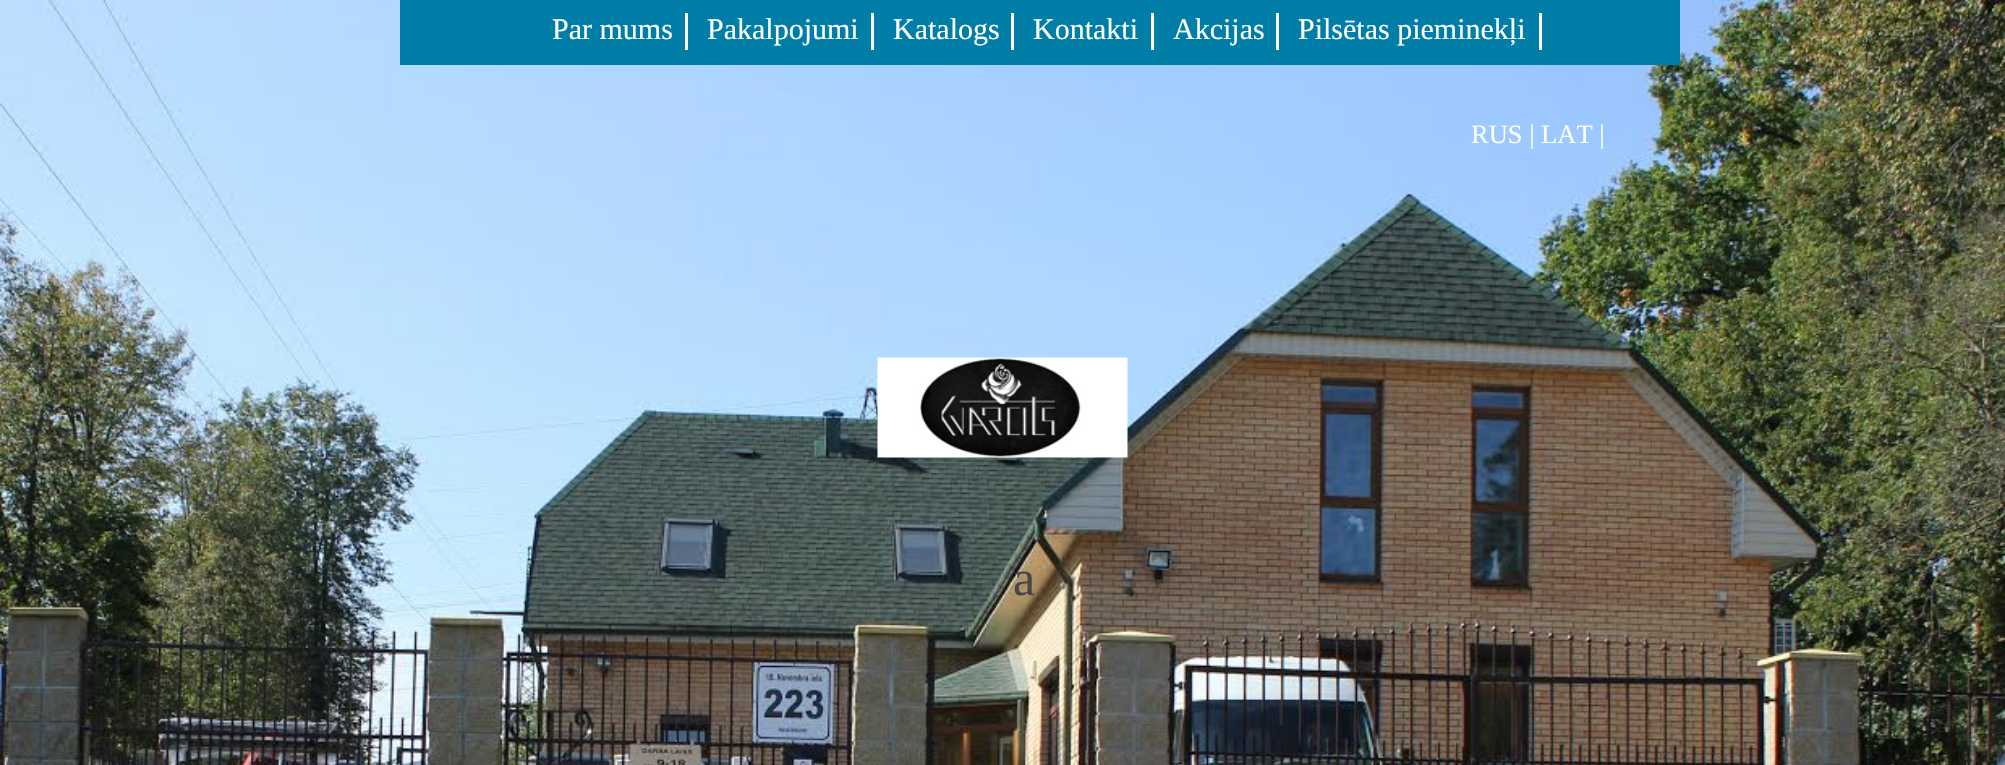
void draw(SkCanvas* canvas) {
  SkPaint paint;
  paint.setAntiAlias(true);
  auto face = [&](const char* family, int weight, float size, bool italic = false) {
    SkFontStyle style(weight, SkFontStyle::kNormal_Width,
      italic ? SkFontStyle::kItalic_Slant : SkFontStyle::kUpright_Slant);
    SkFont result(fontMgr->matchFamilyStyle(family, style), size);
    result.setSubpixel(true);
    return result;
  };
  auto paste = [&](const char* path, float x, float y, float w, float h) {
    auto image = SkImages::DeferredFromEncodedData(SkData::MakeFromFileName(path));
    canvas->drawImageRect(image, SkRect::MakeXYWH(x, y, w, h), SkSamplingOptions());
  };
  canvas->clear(0xffffffff);
  paste("img/1.png", 0, 0, 2005, 765);
  {
    const struct { float x, y, w, h; SkColor color; } items[] = {
      {400, 0, 1280, 65, 0xff007ea7},
      {685, 13, 3, 37, 0xffffffff},
      {871, 13, 3, 37, 0xffffffff},
      {1011, 13, 3, 37, 0xffffffff},
      {1151, 13, 3, 37, 0xffffffff},
      {1276, 13, 3, 37, 0xffffffff},
      {1539, 13, 3, 37, 0xffffffff},
    };
    for (auto [x, y, w, h, color] : items) {
      paint.setColor(color);
      canvas->drawRect(SkRect::MakeXYWH(x, y, w, h), paint);
    }
  }
  paste("img/2.png", 877, 357, 251, 101);
  auto f0 = face("Liberation Serif", 400, 30);
  {
    const struct { const char* s; float x, y; } items[] = {
      {"Par mums", 552, 39},
      {"Pakalpojumi", 707, 39},
      {"Katalogs", 893, 39},
      {"Kontakti", 1033, 39},
      {"Akcijas", 1173, 39},
      {"Pilsētas pieminekļi", 1298, 39},
    };
    for (auto [s, x, y] : items) {
      canvas->drawString(s, x, y, f0, paint);
    }
  }
  auto f1 = face("Liberation Serif", 400, 26.5f);
  canvas->drawString("RUS | LAT |", 1471, 143, f1, paint);
  auto f2 = face("Liberation Serif", 400, 50);
  paint.setColor(0xff474747);
  canvas->drawString("a", 1013, 595, f2, paint);
}
